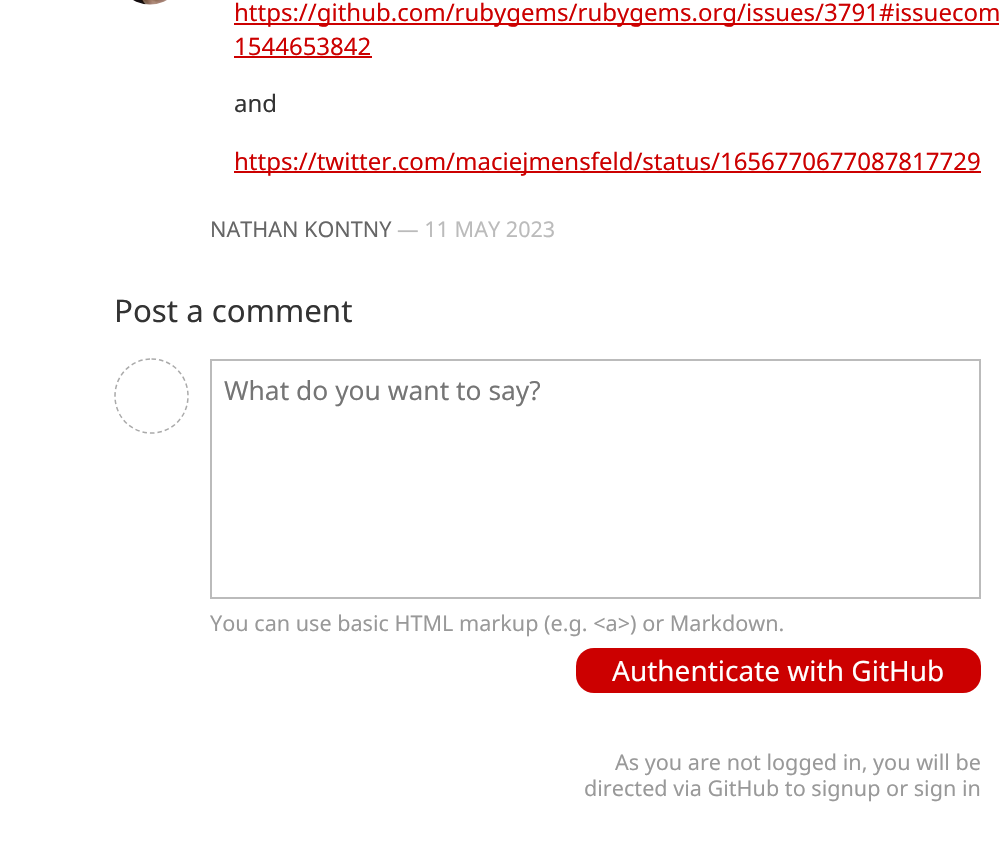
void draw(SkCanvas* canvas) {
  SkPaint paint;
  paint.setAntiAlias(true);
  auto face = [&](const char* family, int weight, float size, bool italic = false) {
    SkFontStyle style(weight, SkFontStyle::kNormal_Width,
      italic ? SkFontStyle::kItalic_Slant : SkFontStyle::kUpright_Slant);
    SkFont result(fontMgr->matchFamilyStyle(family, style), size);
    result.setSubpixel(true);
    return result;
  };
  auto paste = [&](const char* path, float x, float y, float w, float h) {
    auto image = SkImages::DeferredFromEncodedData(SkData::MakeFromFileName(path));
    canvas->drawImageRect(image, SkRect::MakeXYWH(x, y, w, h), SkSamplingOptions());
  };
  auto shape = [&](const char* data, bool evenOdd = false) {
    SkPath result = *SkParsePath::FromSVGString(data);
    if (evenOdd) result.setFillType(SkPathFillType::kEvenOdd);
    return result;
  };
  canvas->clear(0xffffffff);
  paste("img/1.png", 133, 0, 34, 5);
  {
    const struct { float x, y, w, h; SkColor color; } items[] = {
      {234, 23, 765, 2, 0xffcc0000},
      {234, 56, 138, 2, 0xffcc0000},
      {234, 171, 747, 2, 0xffcc0000},
    };
    for (auto [x, y, w, h, color] : items) {
      paint.setColor(color);
      canvas->drawRect(SkRect::MakeXYWH(x, y, w, h), paint);
    }
  }
  paint.setStroke(true);
  paint.setStrokeWidth(1.5f);
  paint.setColor(0xffaaaaaa);
  paint.setPathEffect(SkDashPathEffect::Make({{4.5f, 3}}, 0));
  canvas->drawPath(shape("M151.5 359C172 359 188 375.5 188 396C188 416.5 172 433 151.5 433C131 433 115 416.5 115 396C115 375.5 131 359 151.5 359Z"), paint);
  paint.setPathEffect(nullptr);
  paint.setStrokeWidth(2);
  paint.setColor(0xffbbbbbb);
  canvas->drawRect(SkRect::MakeXYWH(211, 360, 769, 238), paint);
  paint.setStroke(false);
  paint.setColor(0xffcc0000);
  canvas->drawRoundRect(SkRect::MakeXYWH(576, 648, 405, 45), 18, 18, paint);
  auto f0 = face("Noto Sans", 400, 24);
  canvas->drawString("https://github.com/rubygems/rubygems.org/issues/3791#issuecom", 234, 21, f0, paint);
  canvas->drawString("1544653842", 234, 55, f0, paint);
  paint.setColor(0xff333333);
  canvas->drawString("and", 234, 112, f0, paint);
  paint.setColor(0xffcc0000);
  canvas->drawString("https://twitter.com/maciejmensfeld/status/1656770677087817729", 234, 170, f0, paint);
  auto f1 = face("Noto Sans", 400, 21.6f);
  paint.setColor(0xff666666);
  canvas->drawString("NATHAN KONTNY", 210, 237, f1, paint);
  paint.setColor(0xffbbbbbb);
  canvas->drawString("— 11 MAY 2023", 397, 237, f1, paint);
  auto f2 = face("Noto Sans", 400, 31.25f);
  paint.setColor(0xff333333);
  canvas->drawString("Post a comment", 114, 322, f2, paint);
  auto f3 = face("Noto Sans", 400, 26.4f);
  paint.setColor(0xff757575);
  canvas->drawString("What do you want to say?", 224, 400, f3, paint);
  paint.setColor(0xff999999);
  canvas->drawString("You can use basic HTML markup (e.g. <a>) or Markdown.", 210, 631, f1, paint);
  auto f4 = face("Noto Sans", 400, 28);
  paint.setColor(0xffffffff);
  canvas->drawString("Authenticate with GitHub", 612, 681, f4, paint);
  paint.setColor(0xff999999);
  canvas->drawString("As you are not logged in, you will be", 615, 770, f1, paint);
  canvas->drawString("directed via GitHub to signup or sign in", 584, 796, f1, paint);
}
